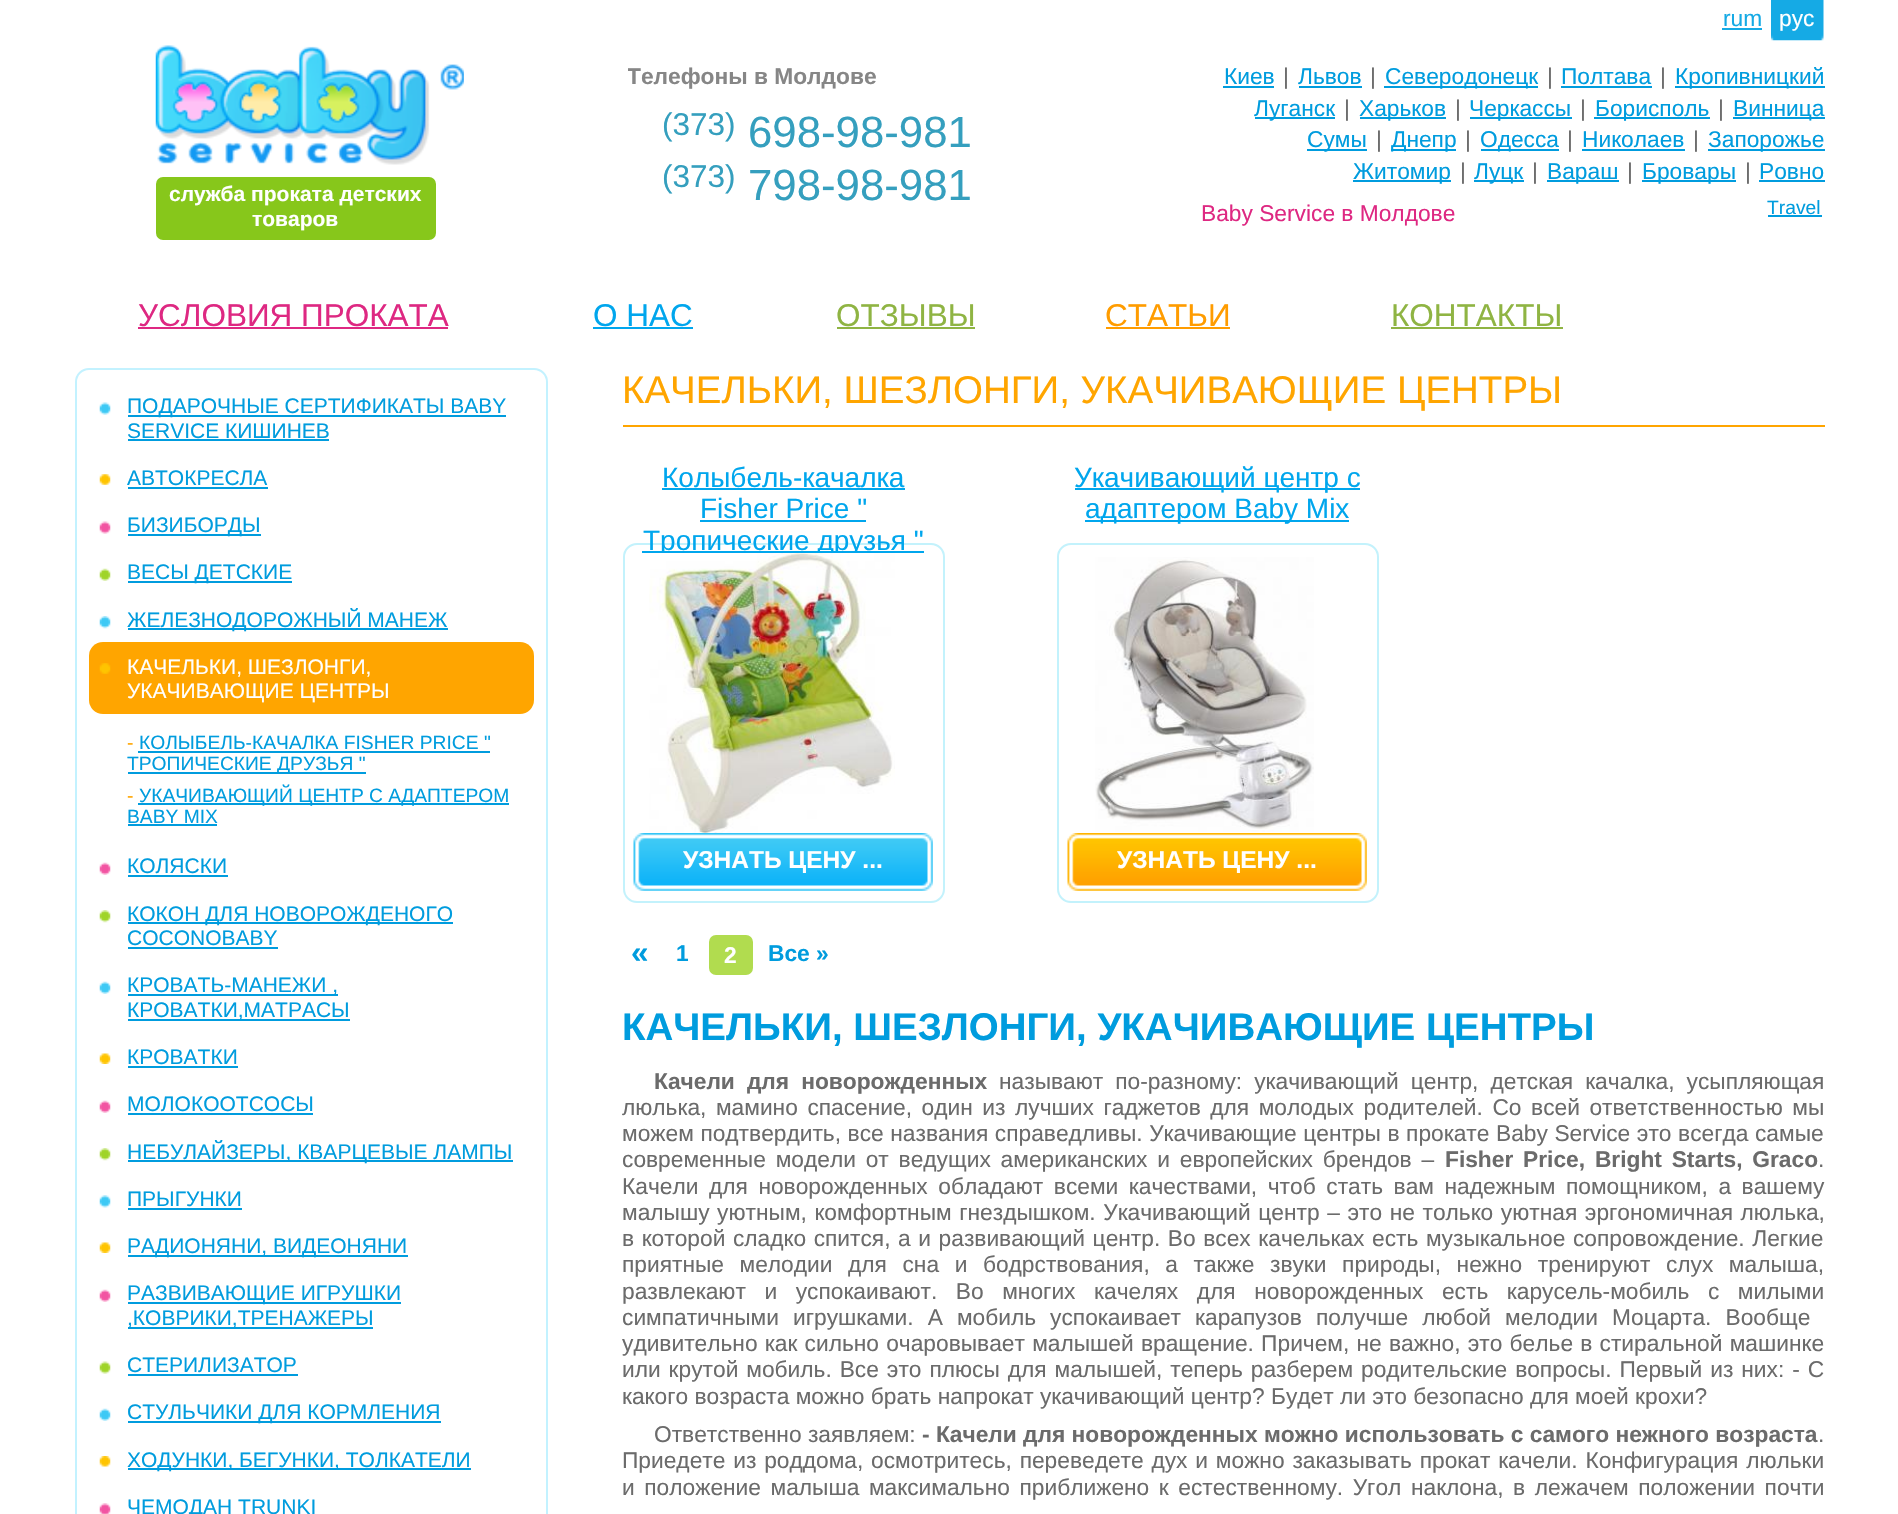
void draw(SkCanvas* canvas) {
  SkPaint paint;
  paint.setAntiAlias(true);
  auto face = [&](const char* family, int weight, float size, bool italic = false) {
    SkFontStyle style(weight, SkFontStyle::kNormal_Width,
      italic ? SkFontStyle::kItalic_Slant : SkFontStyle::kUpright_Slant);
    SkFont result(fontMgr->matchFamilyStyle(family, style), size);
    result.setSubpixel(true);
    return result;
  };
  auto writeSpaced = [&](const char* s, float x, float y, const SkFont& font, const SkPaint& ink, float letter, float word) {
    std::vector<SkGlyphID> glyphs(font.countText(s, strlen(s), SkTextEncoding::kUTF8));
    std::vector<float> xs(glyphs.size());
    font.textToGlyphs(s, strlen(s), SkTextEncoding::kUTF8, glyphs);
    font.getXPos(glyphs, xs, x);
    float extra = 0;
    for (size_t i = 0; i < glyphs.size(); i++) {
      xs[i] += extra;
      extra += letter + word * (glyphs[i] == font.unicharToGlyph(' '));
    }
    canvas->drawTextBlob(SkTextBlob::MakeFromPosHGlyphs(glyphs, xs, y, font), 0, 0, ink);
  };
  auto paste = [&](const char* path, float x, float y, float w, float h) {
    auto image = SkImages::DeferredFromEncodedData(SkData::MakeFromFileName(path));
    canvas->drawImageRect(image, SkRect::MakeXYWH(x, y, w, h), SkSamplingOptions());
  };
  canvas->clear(0xffffffff);
  paint.setColor(0xff15aae5);
  canvas->drawRect(SkRect::MakeXYWH(1722, 28, 40, 2), paint);
  paste("img/1.png", 1771, 0, 53, 41);
  paste("img/2.png", 155, 45, 309, 120);
  paint.setColor(0xff87c71b);
  canvas->drawRoundRect(SkRect::MakeXYWH(157, 178, 278, 61), 6, 6, paint);
  paint.setStroke(true);
  paint.setStrokeWidth(2);
  canvas->drawRoundRect(SkRect::MakeXYWH(157, 178, 278, 61), 6, 6, paint);
  paint.setStroke(false);
  {
    const struct { float x, y, w, h; SkColor color; } items[] = {
      {1223, 86, 51, 2, 0xff009cde},
      {1299, 86, 63, 2, 0xff009cde},
      {1384, 86, 154, 2, 0xff009cde},
      {1561, 86, 91, 2, 0xff009cde},
      {1675, 86, 150, 2, 0xff009cde},
      {1255, 117, 80, 2, 0xff009cde},
      {1360, 117, 86, 2, 0xff009cde},
      {1470, 117, 102, 2, 0xff009cde},
      {1594, 117, 116, 2, 0xff009cde},
      {1733, 117, 92, 2, 0xff009cde},
      {1307, 149, 60, 2, 0xff009cde},
      {1391, 149, 65, 2, 0xff009cde},
      {1481, 149, 78, 2, 0xff009cde},
      {1582, 149, 103, 2, 0xff009cde},
      {1708, 149, 117, 2, 0xff009cde},
      {1353, 180, 98, 2, 0xff009cde},
      {1474, 180, 50, 2, 0xff009cde},
      {1547, 180, 72, 2, 0xff009cde},
      {1642, 180, 94, 2, 0xff009cde},
      {1759, 180, 66, 2, 0xff009cde},
      {1768, 215, 54, 2, 0xff009cde},
      {138, 327, 310, 2, 0xffde2882},
      {593, 327, 100, 2, 0xff00a6ed},
      {837, 327, 138, 2, 0xff8fb443},
      {1106, 327, 124, 2, 0xffff9c00},
      {1391, 327, 172, 2, 0xff8fb443},
    };
    for (auto [x, y, w, h, color] : items) {
      paint.setColor(color);
      canvas->drawRect(SkRect::MakeXYWH(x, y, w, h), paint);
    }
  }
  paint.setStroke(true);
  paint.setColor(0xffc3f2ff);
  canvas->drawRoundRect(SkRect::MakeXYWH(76, 369, 471, 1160), 13, 13, paint);
  paste("img/3.png", 99, 402, 12, 13);
  paint.setStroke(false);
  paint.setColor(0xff009cde);
  canvas->drawRect(SkRect::MakeXYWH(128, 415, 378, 2), paint);
  canvas->drawRect(SkRect::MakeXYWH(128, 439, 201, 2), paint);
  paste("img/4.png", 99, 474, 12, 11);
  canvas->drawRect(SkRect::MakeXYWH(128, 487, 140, 2), paint);
  paste("img/5.png", 99, 521, 12, 13);
  canvas->drawRect(SkRect::MakeXYWH(128, 534, 133, 2), paint);
  paste("img/6.png", 99, 568, 12, 13);
  canvas->drawRect(SkRect::MakeXYWH(128, 581, 164, 2), paint);
  paste("img/7.png", 99, 616, 12, 13);
  canvas->drawRect(SkRect::MakeXYWH(128, 628, 320, 2), paint);
  paint.setColor(0xffffa500);
  canvas->drawRoundRect(SkRect::MakeXYWH(89, 642, 445, 72), 14, 14, paint);
  paste("img/8.png", 99, 663, 12, 11);
  {
    const struct { float x, y, w, h; SkColor color; } items[] = {
      {138, 751, 352, 2, 0xff009cde},
      {128, 772, 238, 2, 0xff009cde},
      {138, 803, 371, 2, 0xff009cde},
      {128, 824, 89, 2, 0xff009cde},
    };
    for (auto [x, y, w, h, color] : items) {
      paint.setColor(color);
      canvas->drawRect(SkRect::MakeXYWH(x, y, w, h), paint);
    }
  }
  paste("img/9.png", 99, 862, 12, 13);
  canvas->drawRect(SkRect::MakeXYWH(128, 875, 100, 2), paint);
  paste("img/10.png", 99, 910, 12, 13);
  canvas->drawRect(SkRect::MakeXYWH(128, 922, 325, 2), paint);
  canvas->drawRect(SkRect::MakeXYWH(128, 947, 150, 2), paint);
  paste("img/11.png", 99, 981, 12, 13);
  canvas->drawRect(SkRect::MakeXYWH(128, 994, 210, 2), paint);
  canvas->drawRect(SkRect::MakeXYWH(128, 1019, 222, 2), paint);
  paste("img/12.png", 99, 1053, 12, 11);
  canvas->drawRect(SkRect::MakeXYWH(128, 1066, 110, 2), paint);
  paste("img/9.png", 99, 1100, 12, 13);
  canvas->drawRect(SkRect::MakeXYWH(128, 1113, 185, 2), paint);
  paste("img/10.png", 99, 1148, 12, 13);
  canvas->drawRect(SkRect::MakeXYWH(128, 1160, 385, 2), paint);
  paste("img/13.png", 99, 1195, 12, 13);
  canvas->drawRect(SkRect::MakeXYWH(128, 1208, 114, 2), paint);
  paste("img/12.png", 99, 1242, 12, 11);
  canvas->drawRect(SkRect::MakeXYWH(128, 1255, 280, 2), paint);
  paste("img/9.png", 99, 1289, 12, 13);
  canvas->drawRect(SkRect::MakeXYWH(128, 1302, 273, 2), paint);
  canvas->drawRect(SkRect::MakeXYWH(128, 1327, 245, 2), paint);
  paste("img/14.png", 99, 1361, 12, 13);
  canvas->drawRect(SkRect::MakeXYWH(128, 1374, 170, 2), paint);
  paste("img/11.png", 99, 1408, 12, 13);
  canvas->drawRect(SkRect::MakeXYWH(128, 1421, 313, 2), paint);
  paste("img/15.png", 99, 1456, 12, 11);
  canvas->drawRect(SkRect::MakeXYWH(128, 1468, 343, 2), paint);
  paste("img/16.png", 99, 1503, 12, 11);
  {
    const struct { float x, y, w, h; SkColor color; } items[] = {
      {623, 425, 1202, 2, 0xffffa500},
      {662, 488, 243, 2, 0xff00a6ed},
      {700, 520, 166, 2, 0xff00a6ed},
    };
    for (auto [x, y, w, h, color] : items) {
      paint.setColor(color);
      canvas->drawRect(SkRect::MakeXYWH(x, y, w, h), paint);
    }
  }
  paint.setStroke(true);
  paint.setColor(0xffc3f2fc);
  canvas->drawRoundRect(SkRect::MakeXYWH(624, 544, 320, 358), 13, 13, paint);
  paint.setStroke(false);
  paint.setColor(0xff00a6ed);
  canvas->drawRect(SkRect::MakeXYWH(642, 551, 282, 2), paint);
  paste("img/18.png", 633, 833, 300, 58);
  canvas->drawRect(SkRect::MakeXYWH(1075, 488, 285, 2), paint);
  canvas->drawRect(SkRect::MakeXYWH(1085, 520, 264, 2), paint);
  paint.setStroke(true);
  paint.setColor(0xffc3f2fc);
  canvas->drawRoundRect(SkRect::MakeXYWH(1058, 544, 320, 358), 13, 13, paint);
  paste("img/19.png", 1095, 557, 219, 275);
  paste("img/20.png", 1067, 833, 300, 58);
  paint.setStroke(false);
  paint.setColor(0xffb1dc4f);
  canvas->drawRoundRect(SkRect::MakeXYWH(710, 936, 42, 38), 6, 6, paint);
  paint.setStroke(true);
  canvas->drawRoundRect(SkRect::MakeXYWH(710, 936, 42, 38), 6, 6, paint);
  auto f0 = face("Liberation Sans", 400, 22.75f);
  paint.setStroke(false);
  paint.setColor(0xff15aae5);
  canvas->drawString("rum", 1723, 26, f0, paint);
  paint.setColor(0xffffffff);
  canvas->drawString("рус", 1779, 26, f0, paint);
  auto f1 = face("Liberation Sans", 700, 21);
  canvas->drawString("служба проката детских", 169, 201, f1, paint);
  canvas->drawString("товаров", 252, 226, f1, paint);
  canvas->save();
  canvas->clipRect(SkRect::MakeXYWH(628, 63, 343, 154));
  auto f2 = face("Liberation Sans", 700, 22.75f);
  paint.setColor(0xff868686);
  canvas->drawString("Телефоны в Молдове", 627, 84, f2, paint);
  canvas->restore();
  auto f3 = face("Liberation Sans", 400, 31.5f);
  paint.setColor(0xff359fbe);
  canvas->drawString("(373)", 662, 135, f3, paint);
  auto f4 = face("Liberation Sans", 400, 43.75f);
  canvas->drawString("698-98-981", 748, 147, f4, paint);
  canvas->drawString("(373)", 662, 187, f3, paint);
  canvas->drawString("798-98-981", 748, 200, f4, paint);
  paint.setColor(0xff009cde);
  canvas->drawString("Киев", 1224, 84, f0, paint);
  paint.setColor(0xff6b6b6b);
  canvas->drawString("|", 1283, 84, f0, paint);
  paint.setColor(0xff009cde);
  canvas->drawString("Львов", 1298, 84, f0, paint);
  paint.setColor(0xff6b6b6b);
  canvas->drawString("|", 1370, 84, f0, paint);
  paint.setColor(0xff009cde);
  canvas->drawString("Северодонецк", 1385, 84, f0, paint);
  paint.setColor(0xff6b6b6b);
  canvas->drawString("|", 1547, 84, f0, paint);
  paint.setColor(0xff009cde);
  canvas->drawString("Полтава", 1561, 84, f0, paint);
  paint.setColor(0xff6b6b6b);
  canvas->drawString("|", 1660, 84, f0, paint);
  paint.setColor(0xff009cde);
  canvas->drawString("Кропивницкий", 1675, 84, f0, paint);
  canvas->drawString("Луганск", 1254, 116, f0, paint);
  paint.setColor(0xff6b6b6b);
  canvas->drawString("|", 1344, 116, f0, paint);
  paint.setColor(0xff009cde);
  canvas->drawString("Харьков", 1359, 116, f0, paint);
  paint.setColor(0xff6b6b6b);
  canvas->drawString("|", 1455, 116, f0, paint);
  paint.setColor(0xff009cde);
  canvas->drawString("Черкассы", 1469, 116, f0, paint);
  paint.setColor(0xff6b6b6b);
  canvas->drawString("|", 1580, 116, f0, paint);
  paint.setColor(0xff009cde);
  canvas->drawString("Борисполь", 1595, 116, f0, paint);
  paint.setColor(0xff6b6b6b);
  canvas->drawString("|", 1718, 116, f0, paint);
  paint.setColor(0xff009cde);
  canvas->drawString("Винница", 1733, 116, f0, paint);
  canvas->drawString("Сумы", 1307, 147, f0, paint);
  paint.setColor(0xff6b6b6b);
  canvas->drawString("|", 1376, 147, f0, paint);
  paint.setColor(0xff009cde);
  canvas->drawString("Днепр", 1391, 147, f0, paint);
  paint.setColor(0xff6b6b6b);
  canvas->drawString("|", 1465, 147, f0, paint);
  paint.setColor(0xff009cde);
  canvas->drawString("Одесса", 1480, 147, f0, paint);
  paint.setColor(0xff6b6b6b);
  canvas->drawString("|", 1567, 147, f0, paint);
  paint.setColor(0xff009cde);
  canvas->drawString("Николаев", 1582, 147, f0, paint);
  paint.setColor(0xff6b6b6b);
  canvas->drawString("|", 1693, 147, f0, paint);
  paint.setColor(0xff009cde);
  canvas->drawString("Запорожье", 1708, 147, f0, paint);
  canvas->drawString("Житомир", 1353, 179, f0, paint);
  paint.setColor(0xff6b6b6b);
  canvas->drawString("|", 1460, 179, f0, paint);
  paint.setColor(0xff009cde);
  canvas->drawString("Луцк", 1474, 179, f0, paint);
  paint.setColor(0xff6b6b6b);
  canvas->drawString("|", 1532, 179, f0, paint);
  paint.setColor(0xff009cde);
  canvas->drawString("Вараш", 1547, 179, f0, paint);
  paint.setColor(0xff6b6b6b);
  canvas->drawString("|", 1627, 179, f0, paint);
  paint.setColor(0xff009cde);
  canvas->drawString("Бровары", 1642, 179, f0, paint);
  paint.setColor(0xff6b6b6b);
  canvas->drawString("|", 1745, 179, f0, paint);
  paint.setColor(0xff009cde);
  canvas->drawString("Ровно", 1759, 179, f0, paint);
  paint.setColor(0xffde2882);
  canvas->drawString("Baby Service в Молдове", 1201, 221, f0, paint);
  auto f5 = face("Liberation Sans", 400, 19.25f);
  paint.setColor(0xff009cde);
  canvas->drawString("Travel", 1767, 214, f5, paint);
  paint.setColor(0xffde2882);
  canvas->drawString("УСЛОВИЯ ПРОКАТА", 138, 326, f3, paint);
  paint.setColor(0xff00a6ed);
  canvas->drawString("О НАС", 593, 326, f3, paint);
  paint.setColor(0xff8fb443);
  canvas->drawString("ОТЗЫВЫ", 836, 326, f3, paint);
  paint.setColor(0xffff9c00);
  canvas->drawString("CТАТЬИ", 1105, 326, f3, paint);
  paint.setColor(0xff8fb443);
  canvas->drawString("КОНТАКТЫ", 1391, 326, f3, paint);
  auto f6 = face("Liberation Sans", 400, 21);
  paint.setColor(0xff009cde);
  {
    const struct { const char* s; float x, y; } items[] = {
      {"ПОДАРОЧНЫЕ СЕРТИФИКАТЫ BABY", 127, 413},
      {"SERVICE КИШИНЕВ", 127, 438},
      {"АВТОКРЕСЛА", 127, 485},
      {"БИЗИБОРДЫ", 127, 532},
      {"ВЕСЫ ДЕТСКИЕ", 127, 579},
      {"ЖЕЛЕЗНОДОРОЖНЫЙ МАНЕЖ", 127, 627},
    };
    for (auto [s, x, y] : items) {
      canvas->drawString(s, x, y, f6, paint);
    }
  }
  paint.setColor(0xffffffff);
  canvas->drawString("КАЧЕЛЬКИ, ШЕЗЛОНГИ,", 127, 674, f6, paint);
  canvas->drawString("УКАЧИВАЮЩИЕ ЦЕНТРЫ", 127, 698, f6, paint);
  paint.setColor(0xffffa500);
  canvas->drawString("-", 127, 749, f5, paint);
  paint.setColor(0xff009cde);
  canvas->drawString("КОЛЫБЕЛЬ-КАЧАЛКА FISHER PRICE \"", 139, 749, f5, paint);
  canvas->drawString("ТРОПИЧЕСКИЕ ДРУЗЬЯ \"", 127, 770, f5, paint);
  paint.setColor(0xffffa500);
  canvas->drawString("-", 127, 802, f5, paint);
  paint.setColor(0xff009cde);
  canvas->drawString("УКАЧИВАЮЩИЙ ЦЕНТР С АДАПТЕРОМ", 139, 802, f5, paint);
  canvas->drawString("BABY MIX", 127, 823, f5, paint);
  {
    const struct { const char* s; float x, y; } items[] = {
      {"КОЛЯСКИ", 127, 873},
      {"КОКОН ДЛЯ НОВОРОЖДЕНОГО", 127, 921},
      {"COCONOBABY", 127, 945},
      {"КРОВАТЬ-МАНЕЖИ ,", 127, 992},
      {"КРОВАТКИ,МАТРАСЫ", 127, 1017},
      {"КРОВАТКИ", 127, 1064},
      {"МОЛОКООТСОСЫ", 127, 1111},
      {"НЕБУЛАЙЗЕРЫ, КВАРЦЕВЫЕ ЛАМПЫ", 127, 1159},
      {"ПРЫГУНКИ", 127, 1206},
      {"РАДИОНЯНИ, ВИДЕОНЯНИ", 127, 1253},
      {"РАЗВИВАЮЩИЕ ИГРУШКИ", 127, 1300},
      {",КОВРИКИ,ТРЕНАЖЕРЫ", 127, 1325},
      {"СТЕРИЛИЗАТОР", 127, 1372},
      {"СТУЛЬЧИКИ ДЛЯ КОРМЛЕНИЯ", 127, 1419},
      {"ХОДУНКИ, БЕГУНКИ, ТОЛКАТЕЛИ", 127, 1467},
      {"ЧЕМОДАН TRUNKI", 127, 1514},
    };
    for (auto [s, x, y] : items) {
      canvas->drawString(s, x, y, f6, paint);
    }
  }
  auto f7 = face("Liberation Sans", 400, 38.5f);
  paint.setColor(0xffffa500);
  canvas->drawString("КАЧЕЛЬКИ, ШЕЗЛОНГИ, УКАЧИВАЮЩИЕ ЦЕНТРЫ", 622, 403, f7, paint);
  auto f8 = face("Liberation Sans", 400, 28);
  paint.setColor(0xff00a6ed);
  {
    const struct { const char* s; float x, y; } items[] = {
      {"Колыбель-качалка", 662, 487},
      {"Fisher Price \"", 700, 518},
      {"Тропические друзья \"", 643, 550},
    };
    for (auto [s, x, y] : items) {
      canvas->drawString(s, x, y, f8, paint);
    }
  }
  paste("img/17.png", 649, 553, 246, 280);
  auto f9 = face("Liberation Sans", 700, 24.5f);
  paint.setColor(0xffffffff);
  canvas->drawString("УЗНАТЬ ЦЕНУ ...", 683, 868, f9, paint);
  paint.setColor(0xff00a6ed);
  canvas->drawString("Укачивающий центр с", 1074, 487, f8, paint);
  canvas->drawString("адаптером Baby Mix", 1085, 518, f8, paint);
  paint.setColor(0xffffffff);
  canvas->drawString("УЗНАТЬ ЦЕНУ ...", 1117, 868, f9, paint);
  auto f10 = face("Liberation Sans", 700, 31.5f);
  paint.setColor(0xff009cde);
  canvas->drawString("«", 631, 963, f10, paint);
  canvas->drawString("1", 676, 961, f2, paint);
  paint.setColor(0xffffffff);
  canvas->drawString("2", 724, 963, f2, paint);
  paint.setColor(0xff009cde);
  canvas->drawString("Все »", 768, 961, f2, paint);
  auto f11 = face("Liberation Sans", 700, 38.5f);
  canvas->drawString("КАЧЕЛЬКИ, ШЕЗЛОНГИ, УКАЧИВАЮЩИЕ ЦЕНТРЫ", 622, 1040, f11, paint);
  paint.setColor(0xff6b6b6b);
  writeSpaced("Качели для новорожденных", 654, 1089, f2, paint, 0, 5.75f);
  writeSpaced("называют по-разному: укачивающий центр, детская качалка, усыпляющая", 999, 1089, f0, paint, 0, 5.75f);
  writeSpaced("люлька, мамино спасение, один из лучших гаджетов для молодых родителей. Со всей ответственностью мы", 622, 1115, f0, paint, 0, 3.25f);
  writeSpaced("можем подтвердить, все названия справедливы. Укачивающие центры в прокате Baby Service это всегда самые", 622, 1141, f0, paint, 0, 0.25f);
  writeSpaced("современные модели от ведущих американских и европейских брендов –", 622, 1167, f0, paint, 0, 3.5f);
  writeSpaced("Fisher Price, Bright Starts, Graco", 1445, 1167, f2, paint, 0, 3.5f);
  canvas->drawString(".", 1818, 1167, f0, paint);
  writeSpaced("Качели для новорожденных обладают всеми качествами, чтоб стать вам надежным помощником, а вашему", 622, 1194, f0, paint, 0, 4.25f);
  writeSpaced("малышу уютным, комфортным гнездышком. Укачивающий центр – это не только уютная эргономичная люлька,", 622, 1220, f0, paint, 0, 1.25f);
  writeSpaced("в которой сладко спится, а и развивающий центр. Во всех качельках есть музыкальное сопровождение. Легкие", 622, 1246, f0, paint, 0, 1.25f);
  writeSpaced("приятные мелодии для сна и бодрствования, а также звуки природы, нежно тренируют слух малыша,", 622, 1272, f0, paint, 0, 9.25f);
  writeSpaced("развлекают и успокаивают. Во многих качелях для новорожденных есть карусель-мобиль с милыми", 622, 1299, f0, paint, 0, 12.25f);
  writeSpaced("симпатичными игрушками. А мобиль успокаивает карапузов получше любой мелодии Моцарта. Вообще", 622, 1325, f0, paint, 0, 7.75f);
  writeSpaced("удивительно как сильно очаровывает малышей вращение. Причем, не важно, это белье в стиральной машинке", 622, 1351, f0, paint, 0, 0.9f);
  writeSpaced("или крутой мобиль. Все это плюсы для малышей, теперь разберем родительские вопросы. Первый из них: - С", 622, 1377, f0, paint, 0, 1.6f);
  canvas->drawString("какого возраста можно брать напрокат укачивающий центр? Будет ли это безопасно для моей крохи?", 622, 1404, f0, paint);
  canvas->drawString("Ответственно заявляем:", 654, 1442, f0, paint);
  canvas->drawString("- Качели для новорожденных можно использовать с самого нежного возраста", 922, 1442, f2, paint);
  canvas->drawString(".", 1818, 1442, f0, paint);
  writeSpaced("Приедете из роддома, осмотритесь, переведете дух и можно заказывать прокат качели. Конфигурация люльки", 622, 1468, f0, paint, 0, 1.5f);
  writeSpaced("и положение малыша максимально приближено к естественному. Угол наклона, в лежачем положении почти", 622, 1495, f0, paint, 0, 3.25f);
}
